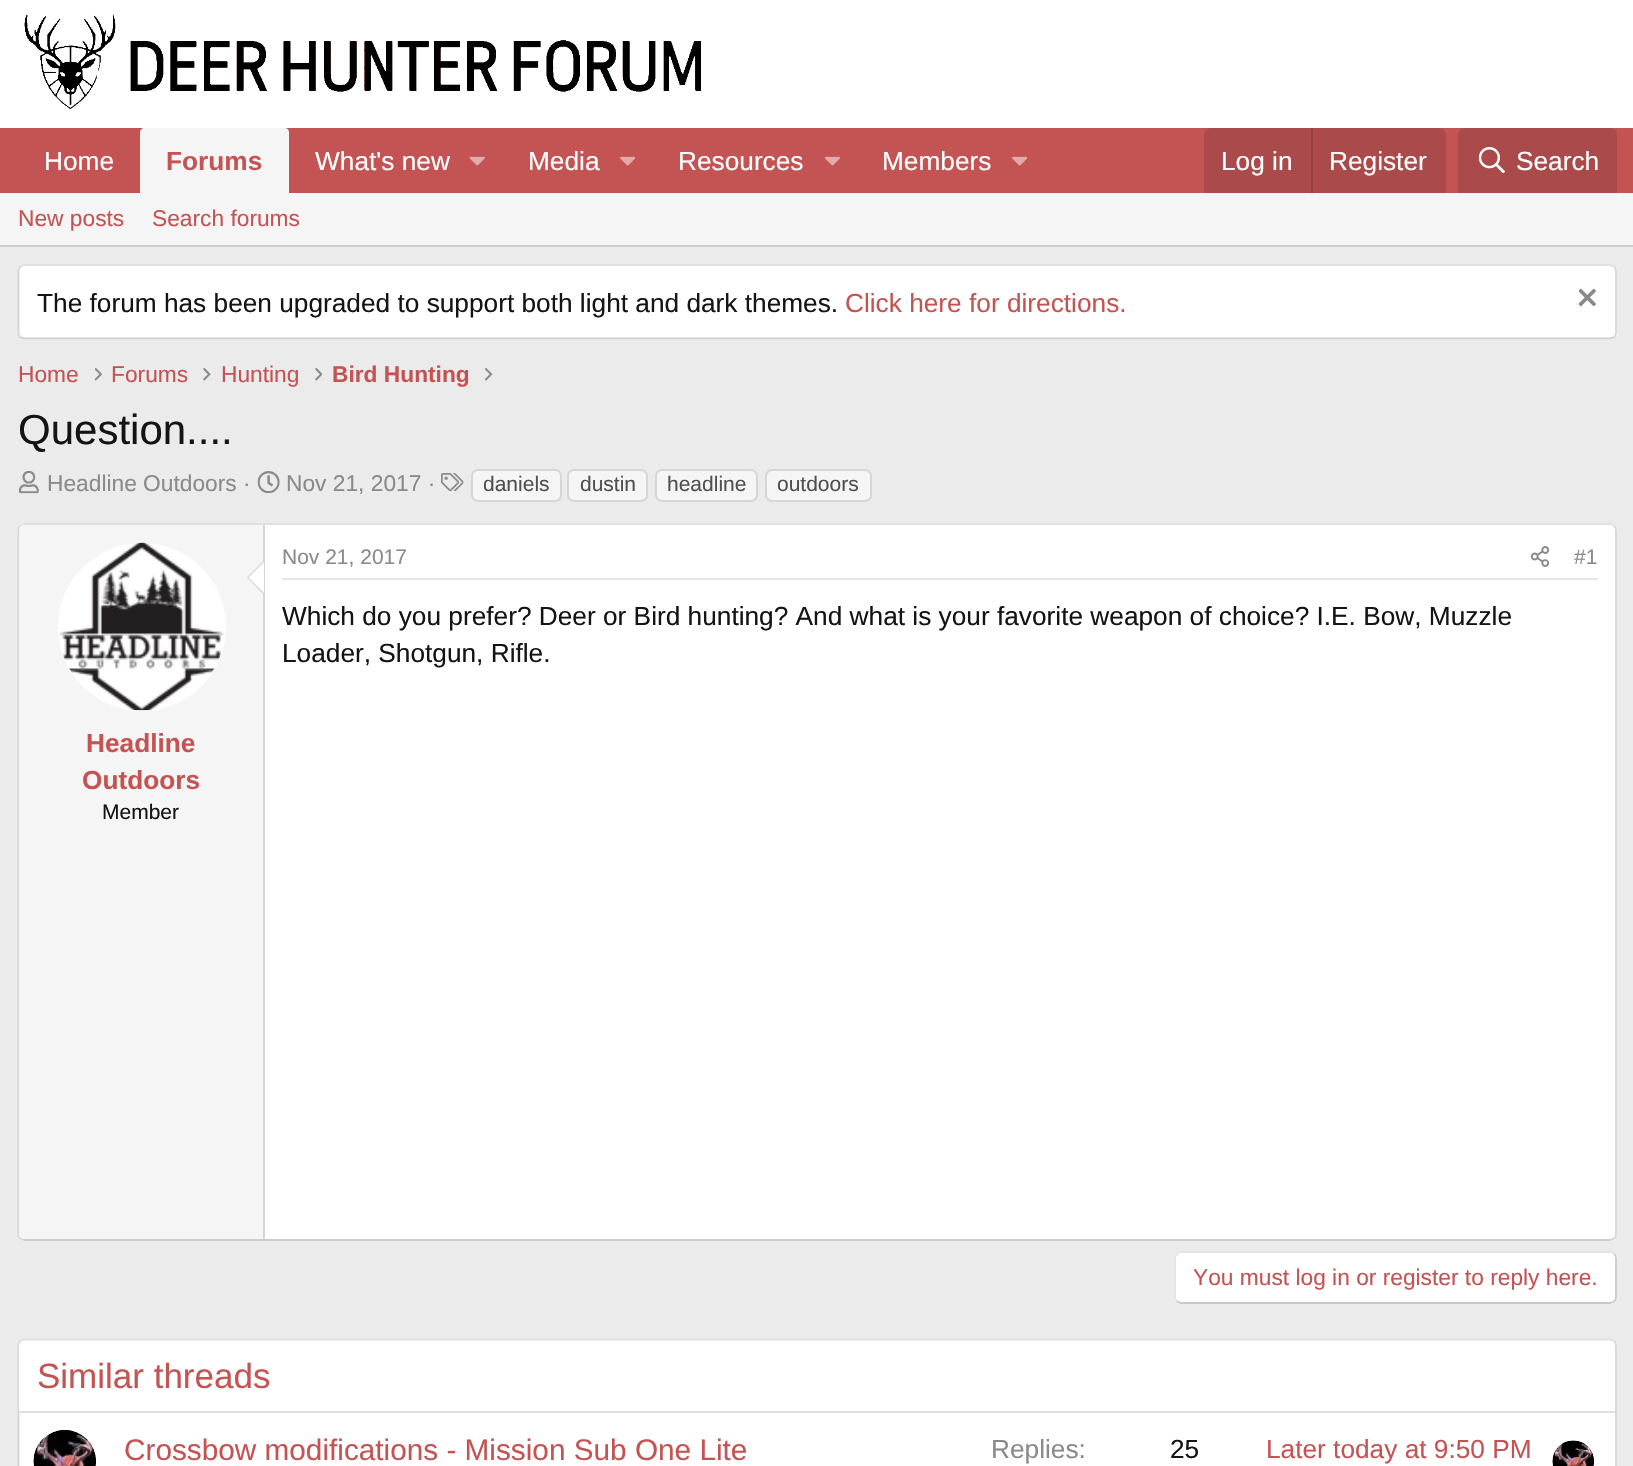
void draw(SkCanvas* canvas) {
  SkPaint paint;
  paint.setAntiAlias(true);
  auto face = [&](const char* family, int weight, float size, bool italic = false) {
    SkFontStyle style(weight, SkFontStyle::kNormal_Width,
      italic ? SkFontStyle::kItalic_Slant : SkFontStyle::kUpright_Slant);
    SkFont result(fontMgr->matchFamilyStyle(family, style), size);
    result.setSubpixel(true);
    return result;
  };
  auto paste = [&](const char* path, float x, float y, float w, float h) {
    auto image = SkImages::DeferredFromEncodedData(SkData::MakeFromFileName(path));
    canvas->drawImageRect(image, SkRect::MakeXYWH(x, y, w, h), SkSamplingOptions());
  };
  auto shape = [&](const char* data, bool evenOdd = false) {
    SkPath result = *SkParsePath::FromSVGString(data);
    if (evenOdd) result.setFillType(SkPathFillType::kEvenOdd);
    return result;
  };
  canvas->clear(0xffebebeb);
  paint.setColor(0xffffffff);
  canvas->drawRect(SkRect::MakeXYWH(0, 0, 1633, 128), paint);
  paste("img/1.png", 24, 14, 677, 95);
  paint.setColor(0xffc45454);
  canvas->drawRect(SkRect::MakeXYWH(0, 128, 1633, 65), paint);
  paint.setColor(0xfff5f5f5);
  canvas->drawPath(shape("M144 128H285C287 128 289 130 289 132V193H140V132C140 130 142 128 144 128Z"), paint);
  paste("img/2.png", 469, 156, 16, 10);
  paste("img/3.png", 620, 156, 15, 10);
  paste("img/4.png", 824, 156, 16, 10);
  paste("img/3.png", 1012, 156, 15, 10);
  paint.setColor(0xffaa4a4a);
  canvas->drawPath(shape("M1211 128H1439C1443 128 1446 131 1446 135V193H1204V135C1204 131 1207 128 1211 128Z"), paint);
  paint.setColor(0xff944242);
  canvas->drawRect(SkRect::MakeXYWH(1311, 128, 2, 65), paint);
  paint.setColor(0xffaa4a4a);
  canvas->drawPath(shape("M1465 128H1610C1614 128 1617 131 1617 135V193H1458V135C1458 131 1461 128 1465 128Z"), paint);
  paste("img/5.png", 1479, 147, 26, 26);
  paint.setColor(0xfff5f5f5);
  canvas->drawRect(SkRect::MakeXYWH(0, 193, 1633, 52), paint);
  paint.setColor(0xffcccccc);
  canvas->drawRect(SkRect::MakeXYWH(0, 245, 1633, 2), paint);
  paint.setColor(0xffffffff);
  canvas->drawRoundRect(SkRect::MakeXYWH(18, 264, 1599, 76), 7, 7, paint);
  paint.setStroke(true);
  paint.setStrokeWidth(1.8f);
  paint.setColor(0xffe0e0e0);
  canvas->drawPath(shape("M20 267C21.5 266 23 265 24.5 265H1610C1611.5 265 1613 266 1614.5 267"), paint);
  paint.setColor(0xffd6d6d6);
  canvas->drawPath(shape("M1614.5 267C1615.5 268 1616 269.5 1616 271V332.5C1616 334 1615.5 335.5 1614.5 337"), paint);
  paint.setColor(0xffcccccc);
  canvas->drawPath(shape("M1614.5 337C1613 338 1611.5 338.5 1610 338.5H24.5C23 338.5 21.5 338 20 337"), paint);
  paint.setColor(0xffd6d6d6);
  canvas->drawPath(shape("M20 337C19 335.5 18.5 334 18.5 332.5V271C18.5 269.5 19 268 20 267"), paint);
  paste("img/6.png", 1579, 288, 17, 19);
  paste("img/7.png", 95, 368, 7, 13);
  paste("img/8.png", 203, 367, 8, 14);
  paste("img/9.png", 315, 367, 7, 14);
  paste("img/10.png", 485, 368, 8, 13);
  paste("img/11.png", 18, 471, 21, 23);
  paste("img/12.png", 257, 471, 23, 23);
  paste("img/13.png", 441, 473, 23, 19);
  paint.setStroke(false);
  paint.setColor(0xfff5f5f5);
  canvas->drawRoundRect(SkRect::MakeXYWH(472, 470, 89, 31), 6, 6, paint);
  paint.setStroke(true);
  paint.setStrokeWidth(2);
  paint.setColor(0xffd6d6d6);
  canvas->drawRoundRect(SkRect::MakeXYWH(472, 470, 89, 31), 6, 6, paint);
  paint.setStroke(false);
  paint.setColor(0xfff5f5f5);
  canvas->drawRoundRect(SkRect::MakeXYWH(568, 470, 79, 31), 6, 6, paint);
  paint.setStroke(true);
  paint.setColor(0xffd6d6d6);
  canvas->drawRoundRect(SkRect::MakeXYWH(568, 470, 79, 31), 6, 6, paint);
  paint.setStroke(false);
  paint.setColor(0xfff5f5f5);
  canvas->drawRoundRect(SkRect::MakeXYWH(656, 470, 101, 31), 6, 6, paint);
  paint.setStroke(true);
  paint.setColor(0xffd6d6d6);
  canvas->drawRoundRect(SkRect::MakeXYWH(656, 470, 101, 31), 6, 6, paint);
  paint.setStroke(false);
  paint.setColor(0xfff5f5f5);
  canvas->drawRoundRect(SkRect::MakeXYWH(766, 470, 105, 31), 6, 6, paint);
  paint.setStroke(true);
  paint.setColor(0xffd6d6d6);
  canvas->drawRoundRect(SkRect::MakeXYWH(766, 470, 105, 31), 6, 6, paint);
  paint.setStroke(false);
  paint.setColor(0xffffffff);
  canvas->drawRoundRect(SkRect::MakeXYWH(18, 523, 1599, 718), 7, 7, paint);
  paint.setStroke(true);
  paint.setStrokeWidth(1.8f);
  paint.setColor(0xffe0e0e0);
  canvas->drawPath(shape("M20 526C21.5 525 23 524 24.5 524H1610C1611.5 524 1613 525 1614.5 526"), paint);
  paint.setColor(0xffd6d6d6);
  canvas->drawPath(shape("M1614.5 526C1615.5 527 1616 528.5 1616 530V1234C1616 1235.5 1615.5 1237 1614.5 1238"), paint);
  paint.setColor(0xffcccccc);
  canvas->drawPath(shape("M1614.5 1238C1613 1239 1611.5 1240 1610 1240H24.5C23 1240 21.5 1239 20 1238"), paint);
  paint.setColor(0xffd6d6d6);
  canvas->drawPath(shape("M20 1238C19 1237 18.5 1235.5 18.5 1234V530C18.5 528.5 19 527 20 526"), paint);
  paint.setStroke(false);
  paint.setColor(0xffe6e6e6);
  canvas->drawRect(SkRect::MakeXYWH(282, 578, 1316, 2), paint);
  paste("img/14.png", 1530, 546, 20, 21);
  paint.setColor(0xfff5f5f5);
  canvas->drawPath(shape("M24 525H264V1239H24C21 1239 19 1237 19 1234V530C19 527 21 525 24 525Z"), paint);
  paint.setColor(0xffd6d6d6);
  canvas->drawRect(SkRect::MakeXYWH(263, 525, 2, 714), paint);
  paint.setColor(0xffffffff);
  canvas->drawCircle(142, 627, 84, paint);
  paste("img/15.png", 59, 542, 166, 169);
  paint.setColor(0xffd6d6d6);
  canvas->drawPath(shape("M264 560V595L247 577.5Z"), paint);
  paint.setColor(0xffffffff);
  canvas->drawPath(shape("M264 562V593L248.5 577.5Z"), paint);
  canvas->drawRoundRect(SkRect::MakeXYWH(1174, 1251, 443, 53), 7, 7, paint);
  paint.setStroke(true);
  paint.setColor(0xffc9c9c9);
  canvas->drawPath(shape("M1614.5 1254C1615.5 1255 1616 1256.5 1616 1258V1297C1616 1298.5 1615.5 1300 1614.5 1301C1613 1302 1611.5 1303 1610 1303H1181C1179.5 1303 1178 1302 1177 1301"), paint);
  paint.setColor(0xffe3e3e3);
  canvas->drawPath(shape("M1177 1301C1176 1300 1175 1298.5 1175 1297V1258C1175 1256.5 1176 1255 1177 1254C1178 1253 1179.5 1252 1181 1252H1610C1611.5 1252 1613 1253 1614.5 1254"), paint);
  paint.setStroke(false);
  paint.setColor(0xffffffff);
  canvas->drawRoundRect(SkRect::MakeXYWH(18, 1339, 1599, 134), 7, 7, paint);
  paint.setStroke(true);
  paint.setColor(0xffe0e0e0);
  canvas->drawPath(shape("M20 1341.5C21.5 1340.5 23 1339.5 24.5 1339.5H1610C1611.5 1339.5 1613 1340.5 1614.5 1341.5"), paint);
  paint.setColor(0xffd6d6d6);
  canvas->drawPath(shape("M1614.5 1341.5C1615.5 1342.5 1616 1344 1616 1346V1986C1616 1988 1615.5 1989.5 1614.5 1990.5"), paint);
  canvas->drawPath(shape("M20 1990.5C19 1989.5 18.5 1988 18.5 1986V1346C18.5 1344 19 1342.5 20 1341.5"), paint);
  paint.setStroke(false);
  paint.setColor(0xffffffff);
  canvas->drawPath(shape("M24 1341H1610C1613 1341 1615 1343 1615 1346V1412H19V1346C19 1343 21 1341 24 1341Z"), paint);
  paint.setColor(0xffe0e0e0);
  canvas->drawRect(SkRect::MakeXYWH(19, 1411, 1596, 2), paint);
  paste("img/16.png", 33, 1430, 63, 36);
  paste("img/17.png", 1552, 1440, 42, 26);
  auto f0 = face("Liberation Sans", 400, 26.25f);
  paint.setColor(0xffffffff);
  canvas->drawString("Home", 44, 170, f0, paint);
  auto f1 = face("Liberation Sans", 700, 26.25f);
  paint.setColor(0xffc45454);
  canvas->drawString("Forums", 166, 170, f1, paint);
  paint.setColor(0xffffffff);
  {
    const struct { const char* s; float x, y; } items[] = {
      {"What's new", 315, 170},
      {"Media", 528, 170},
      {"Resources", 678, 170},
      {"Members", 882, 170},
      {"Log in", 1221, 170},
      {"Register", 1329, 170},
      {"Search", 1516, 170},
    };
    for (auto [s, x, y] : items) {
      canvas->drawString(s, x, y, f0, paint);
    }
  }
  auto f2 = face("Liberation Sans", 400, 22.75f);
  paint.setColor(0xffc45454);
  canvas->drawString("New posts", 18, 226, f2, paint);
  canvas->drawString("Search forums", 152, 226, f2, paint);
  paint.setColor(0xff141414);
  canvas->drawString("The forum has been upgraded to support both light and dark themes.", 37, 312, f0, paint);
  paint.setColor(0xffc45454);
  canvas->drawString("Click here for directions.", 845, 312, f0, paint);
  {
    const struct { const char* s; float x, y; } items[] = {
      {"Home", 18, 382},
      {"Forums", 111, 382},
      {"Hunting", 221, 382},
    };
    for (auto [s, x, y] : items) {
      canvas->drawString(s, x, y, f2, paint);
    }
  }
  auto f3 = face("Liberation Sans", 700, 22.75f);
  canvas->drawString("Bird Hunting", 332, 382, f3, paint);
  auto f4 = face("Liberation Sans", 400, 42);
  paint.setColor(0xff141414);
  canvas->drawString("Question....", 18, 444, f4, paint);
  paint.setColor(0xff8a8a8a);
  canvas->drawString("Headline Outdoors ·", 47, 491, f2, paint);
  canvas->drawString("Nov 21, 2017 ·", 286, 491, f2, paint);
  auto f5 = face("Liberation Sans", 400, 21);
  paint.setColor(0xff4f4f4f);
  {
    const struct { const char* s; float x, y; } items[] = {
      {"daniels", 483, 491},
      {"dustin", 580, 491},
      {"headline", 667, 491},
      {"outdoors", 777, 491},
    };
    for (auto [s, x, y] : items) {
      canvas->drawString(s, x, y, f5, paint);
    }
  }
  paint.setColor(0xff8a8a8a);
  canvas->drawString("Nov 21, 2017", 282, 564, f5, paint);
  canvas->drawString("#1", 1574, 564, f5, paint);
  paint.setColor(0xff141414);
  canvas->drawString("Which do you prefer? Deer or Bird hunting? And what is your favorite weapon of choice? I.E. Bow, Muzzle", 282, 625, f0, paint);
  canvas->drawString("Loader, Shotgun, Rifle.", 282, 662, f0, paint);
  paint.setColor(0xffc45454);
  canvas->drawString("Headline", 86, 752, f1, paint);
  canvas->drawString("Outdoors", 82, 789, f1, paint);
  paint.setColor(0xff141414);
  canvas->drawString("Member", 102, 819, f5, paint);
  paint.setColor(0xffc45454);
  canvas->drawString("You must log in or register to reply here.", 1193, 1285, f2, paint);
  auto f6 = face("Liberation Sans", 400, 35);
  canvas->drawString("Similar threads", 37, 1388, f6, paint);
  auto f7 = face("Liberation Sans", 400, 29.75f);
  canvas->drawString("Crossbow modifications - Mission Sub One Lite", 124, 1460, f7, paint);
  paint.setColor(0xff8a8a8a);
  canvas->drawString("Replies:", 991, 1458, f0, paint);
  paint.setColor(0xff141414);
  canvas->drawString("25", 1170, 1458, f0, paint);
  paint.setColor(0xffc45454);
  canvas->drawString("Later today at 9:50 PM", 1266, 1458, f0, paint);
}
